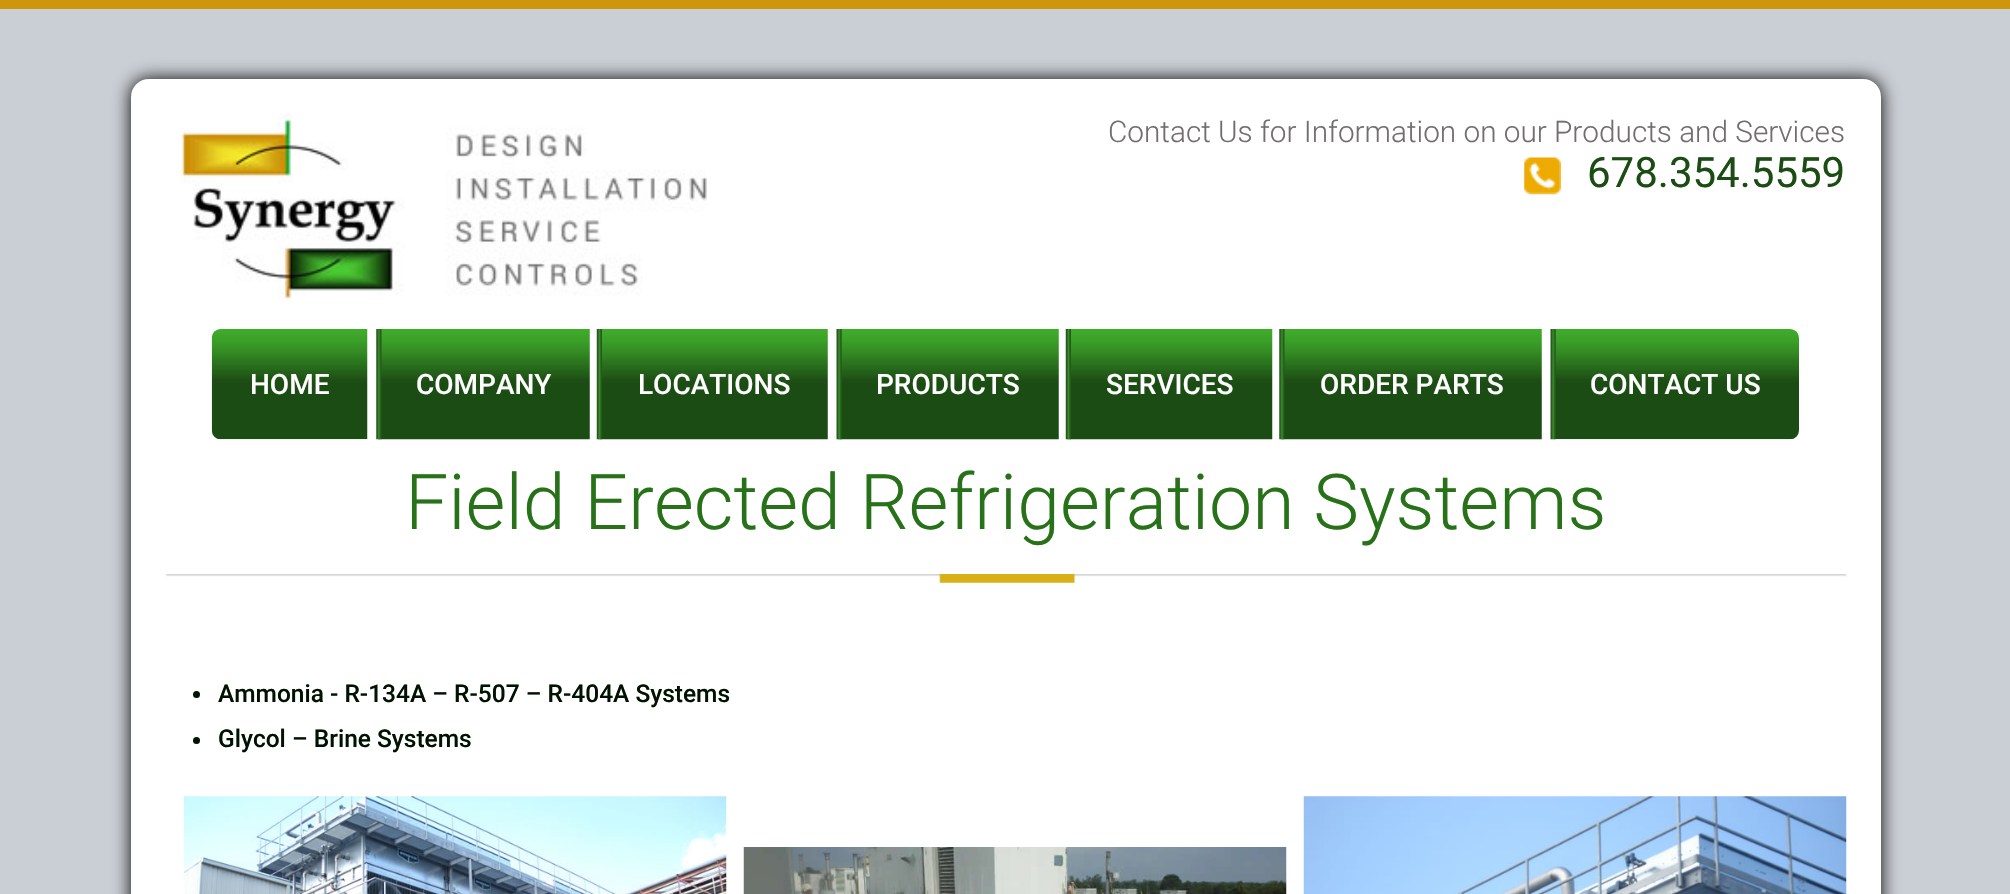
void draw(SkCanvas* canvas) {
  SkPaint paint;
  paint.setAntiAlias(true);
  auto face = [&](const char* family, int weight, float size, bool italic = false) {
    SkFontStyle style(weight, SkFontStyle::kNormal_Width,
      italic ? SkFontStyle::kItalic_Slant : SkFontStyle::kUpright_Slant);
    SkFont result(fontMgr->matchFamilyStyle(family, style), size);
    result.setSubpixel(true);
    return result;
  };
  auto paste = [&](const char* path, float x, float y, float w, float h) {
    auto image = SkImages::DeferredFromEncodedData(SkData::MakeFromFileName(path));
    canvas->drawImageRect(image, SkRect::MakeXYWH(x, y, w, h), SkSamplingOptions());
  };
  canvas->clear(0xffcacfd5);
  paint.setColor(0xffcf960c);
  canvas->drawRect(SkRect::MakeXYWH(0, 0, 2010, 9), paint);
  paint.setColor(0xff000000);
  paint.setMaskFilter(SkMaskFilter::MakeBlur(kNormal_SkBlurStyle, 9));
  canvas->drawRoundRect(SkRect::MakeXYWH(131, 79, 1750, 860), 18, 18, paint);
  paint.setMaskFilter(nullptr);
  paint.setColor(0xffffffff);
  canvas->drawRoundRect(SkRect::MakeXYWH(131, 79, 1750, 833), 18, 18, paint);
  paste("img/1.png", 180, 114, 527, 188);
  paste("img/2.png", 1524, 157, 37, 38);
  paste("img/3.png", 211, 329, 157, 111);
  paste("img/4.png", 378, 329, 212, 111);
  paste("img/5.png", 376, 329, 6, 111);
  paste("img/6.png", 598, 329, 230, 111);
  paste("img/7.png", 596, 329, 6, 111);
  paste("img/8.png", 838, 329, 221, 111);
  paste("img/9.png", 836, 329, 6, 111);
  paste("img/10.png", 1067, 329, 206, 111);
  paste("img/11.png", 1065, 329, 6, 111);
  paste("img/12.png", 1281, 329, 261, 111);
  paste("img/5.png", 1279, 329, 6, 111);
  paste("img/13.png", 1552, 329, 247, 111);
  paste("img/14.png", 1550, 329, 6, 111);
  paste("img/15.png", 166, 574, 1681, 9);
  paint.setColor(0xff001300);
  canvas->drawCircle(196.5f, 694.5f, 3.5f, paint);
  canvas->drawCircle(196.5f, 740.5f, 3.5f, paint);
  paste("img/16.png", 183, 796, 544, 98);
  paste("img/17.png", 743, 847, 544, 47);
  paste("img/18.png", 1303, 796, 544, 98);
  auto f0 = face("Roboto", 300, 29.75f);
  paint.setColor(0xff716e6d);
  canvas->drawString("Contact Us for Information on our Products and Services", 1108, 142, f0, paint);
  auto f1 = face("Roboto", 400, 42);
  paint.setColor(0xff1b4c13);
  canvas->drawString("678.354.5559", 1587, 187, f1, paint);
  auto f2 = face("Roboto", 500, 28);
  paint.setColor(0xffffffff);
  {
    const struct { const char* s; float x, y; } items[] = {
      {"HOME", 250, 394},
      {"COMPANY", 416, 394},
      {"LOCATIONS", 638, 394},
      {"PRODUCTS", 876, 394},
      {"SERVICES", 1106, 394},
      {"ORDER PARTS", 1320, 394},
      {"CONTACT US", 1590, 394},
    };
    for (auto [s, x, y] : items) {
      canvas->drawString(s, x, y, f2, paint);
    }
  }
  auto f3 = face("Roboto", 300, 77);
  paint.setColor(0xff277119);
  canvas->drawString("Field Erected Refrigeration Systems", 405, 529, f3, paint);
  auto f4 = face("Roboto", 500, 24.5f);
  paint.setColor(0xff001300);
  canvas->drawString("Ammonia - R-134A – R-507 – R-404A Systems", 218, 702, f4, paint);
  canvas->drawString("Glycol – Brine Systems", 218, 747, f4, paint);
}
